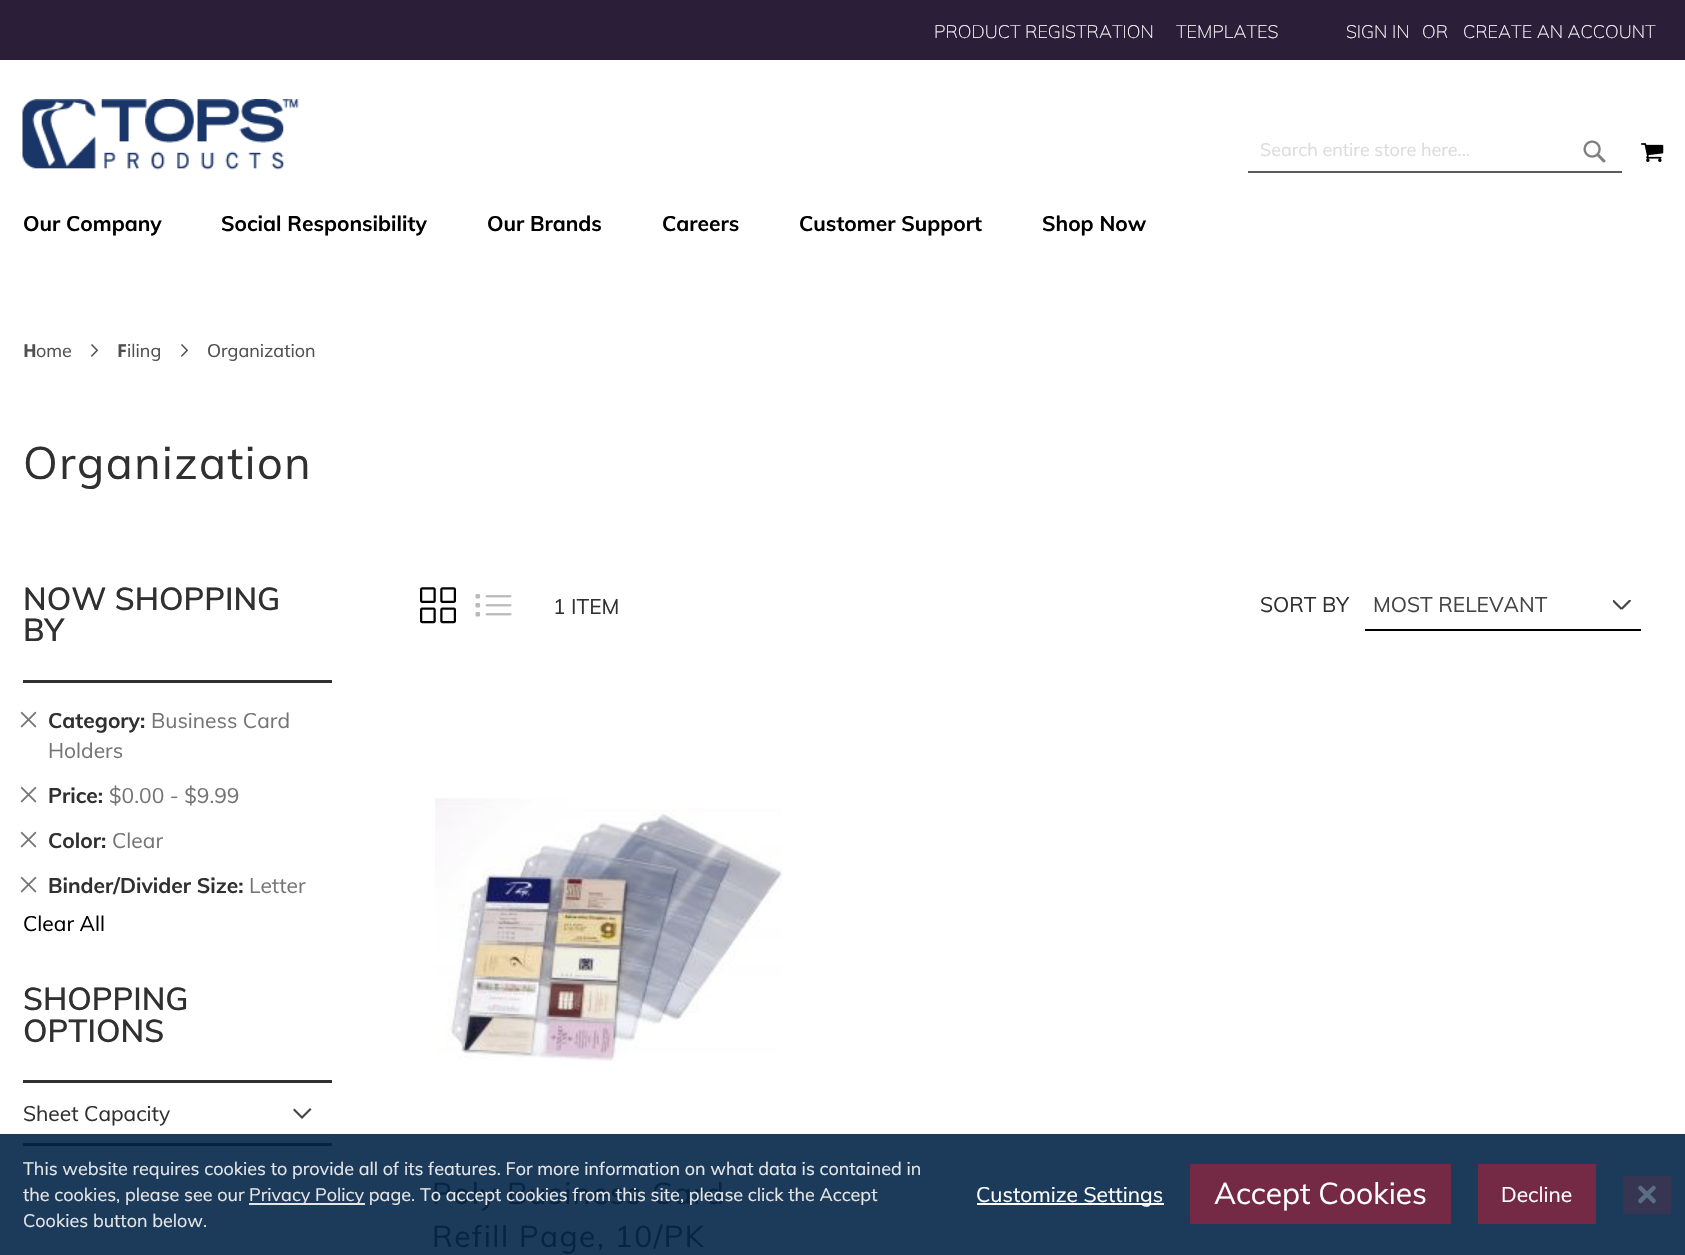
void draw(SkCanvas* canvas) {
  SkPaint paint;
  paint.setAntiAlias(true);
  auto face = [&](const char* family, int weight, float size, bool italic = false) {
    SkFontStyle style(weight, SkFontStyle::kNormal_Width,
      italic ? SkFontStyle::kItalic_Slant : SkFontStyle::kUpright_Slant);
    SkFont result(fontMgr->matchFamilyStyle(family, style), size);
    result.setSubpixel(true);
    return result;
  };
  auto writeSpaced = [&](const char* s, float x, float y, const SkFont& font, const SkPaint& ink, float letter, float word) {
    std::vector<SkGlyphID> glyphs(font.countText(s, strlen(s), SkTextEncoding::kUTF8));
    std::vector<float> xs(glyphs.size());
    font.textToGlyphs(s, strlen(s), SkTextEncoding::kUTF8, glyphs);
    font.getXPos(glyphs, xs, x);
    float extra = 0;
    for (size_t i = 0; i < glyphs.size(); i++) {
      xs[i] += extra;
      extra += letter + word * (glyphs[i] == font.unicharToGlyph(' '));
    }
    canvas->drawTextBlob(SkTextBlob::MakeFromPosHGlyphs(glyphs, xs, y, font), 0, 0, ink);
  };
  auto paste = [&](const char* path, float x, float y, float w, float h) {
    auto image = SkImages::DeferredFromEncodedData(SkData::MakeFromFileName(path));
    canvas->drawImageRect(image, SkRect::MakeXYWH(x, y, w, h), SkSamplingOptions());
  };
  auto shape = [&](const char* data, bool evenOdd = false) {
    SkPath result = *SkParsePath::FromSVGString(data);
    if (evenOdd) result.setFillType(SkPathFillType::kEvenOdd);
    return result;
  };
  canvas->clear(0xffffffff);
  paint.setColor(0xff1c3a59);
  canvas->drawRect(SkRect::MakeXYWH(0, 1134, 1685, 121), paint);
  paint.setColor(0xff2a1e39);
  canvas->drawRect(SkRect::MakeXYWH(0, 0, 1685, 60), paint);
  paste("img/1.png", 22, 99, 277, 71);
  paint.setColor(0xff5c5c5c);
  canvas->drawRect(SkRect::MakeXYWH(1248, 171, 374, 2), paint);
  paste("img/2.png", 1583, 140, 23, 23);
  paste("img/3.png", 1641, 143, 23, 19);
  paste("img/4.png", 90, 344, 9, 13);
  paste("img/4.png", 180, 344, 9, 13);
  paint.setColor(0xff303030);
  canvas->drawRect(SkRect::MakeXYWH(23, 680, 309, 3), paint);
  paste("img/5.png", 20, 711, 17, 17);
  paste("img/5.png", 20, 786, 17, 17);
  paste("img/5.png", 20, 831, 17, 17);
  paste("img/5.png", 20, 876, 17, 17);
  canvas->drawRect(SkRect::MakeXYWH(23, 1080, 309, 3), paint);
  paint.setColor(0xff052442);
  canvas->drawRect(SkRect::MakeXYWH(23, 1143, 309, 3), paint);
  paint.setColor(0xff454545);
  canvas->drawPath(shape("M302 1116L294.5 1108.5L293 1110L302 1119L311.5 1109.5L310 1108Z"), paint);
  paste("img/6.png", 420, 587, 36, 37);
  paste("img/7.png", 475, 594, 37, 23);
  canvas->save();
  canvas->clipRect(SkRect::MakeXYWH(1613, 600, 18, 12));
  paint.setStroke(true);
  paint.setStrokeWidth(2.2f);
  canvas->drawPath(shape("M1612.5 600L1621.5 609M1630.5 600L1621.5 609"), paint);
  canvas->restore();
  paint.setStroke(false);
  paint.setColor(0xff000000);
  canvas->drawRect(SkRect::MakeXYWH(1365, 629, 276, 2), paint);
  paste("img/8.png", 435, 798, 347, 263);
  paint.setColor(0xffe6e6e6);
  canvas->drawRect(SkRect::MakeXYWH(249, 1203, 116, 2), paint);
  paint.setColor(0xffffffff);
  canvas->drawRect(SkRect::MakeXYWH(977, 1203, 187, 2), paint);
  paint.setColor(0xff742a44);
  canvas->drawRoundRect(SkRect::MakeXYWH(1191, 1165, 259, 58), 0.5f, 0.5f, paint);
  paint.setStroke(true);
  paint.setStrokeWidth(2);
  canvas->drawRoundRect(SkRect::MakeXYWH(1191, 1165, 259, 58), 0.5f, 0.5f, paint);
  paint.setStroke(false);
  canvas->drawRect(SkRect::MakeXYWH(1478, 1164, 118, 60), paint);
  paint.setColor(0xff363552);
  canvas->drawRect(SkRect::MakeXYWH(1623, 1176, 48, 38), paint);
  paint.setColor(0xff596e83);
  canvas->drawPath(shape("M1641.5 1186L1655.5 1199.5C1656 1200.5 1656 1201 1655.5 1202L1654.5 1203C1654 1203.5 1653 1203.5 1652.5 1203L1638.5 1189C1638 1188.5 1638 1187.5 1638.5 1187L1639.5 1186C1640 1185.5 1641 1185.5 1641.5 1186Z"), paint);
  canvas->drawPath(shape("M1638.5 1199.5L1652.5 1186C1653 1185.5 1654 1185.5 1654.5 1186L1655.5 1187C1656 1187.5 1656 1188.5 1655.5 1189L1641.5 1203C1641 1203.5 1640 1203.5 1639.5 1203L1638.5 1202C1638 1201 1638 1200.5 1638.5 1199.5Z"), paint);
  auto f0 = face("Muli", 200, 18);
  paint.setColor(0xffffffff);
  {
    const struct { const char* s; float x, y; } items[] = {
      {"PRODUCT REGISTRATION", 934, 38},
      {"TEMPLATES", 1176, 38},
      {"SIGN IN", 1346, 38},
      {"OR", 1422, 38},
      {"CREATE AN ACCOUNT", 1463, 38},
    };
    for (auto [s, x, y] : items) {
      canvas->drawString(s, x, y, f0, paint);
    }
  }
  auto f1 = face("Muli", 400, 18);
  paint.setColor(0xffdcdcdc);
  canvas->drawString("Search entire store here...", 1260, 156, f1, paint);
  auto f2 = face("Muli", 700, 21);
  paint.setColor(0xff000000);
  {
    const struct { const char* s; float x, y; } items[] = {
      {"Our Company", 23, 231},
      {"Social Responsibility", 221, 231},
      {"Our Brands", 487, 231},
      {"Careers", 662, 231},
      {"Customer Support", 799, 231},
      {"Shop Now", 1042, 231},
    };
    for (auto [s, x, y] : items) {
      canvas->drawString(s, x, y, f2, paint);
    }
  }
  auto f3 = face("Noto Sans", 700, 18);
  paint.setColor(0xff505050);
  canvas->drawString("H", 23, 357, f3, paint);
  canvas->drawString("ome", 36, 357, f1, paint);
  canvas->drawString("F", 117, 357, f3, paint);
  canvas->drawString("iling", 127, 357, f1, paint);
  auto f4 = face("Noto Sans", 400, 18);
  canvas->drawString("O", 207, 357, f4, paint);
  canvas->drawString("rganization", 221, 357, f1, paint);
  auto f5 = face("Muli", 400, 45);
  paint.setColor(0xff303030);
  writeSpaced("Organization", 23, 479, f5, paint, 1.5f, 0);
  auto f6 = face("Muli", 600, 31.5f);
  canvas->drawString("NOW SHOPPING", 23, 610, f6, paint);
  canvas->drawString("BY", 23, 641, f6, paint);
  canvas->drawString("Category:", 48, 728, f2, paint);
  auto f7 = face("Muli", 400, 21);
  paint.setColor(0xff757575);
  canvas->drawString("Business Card", 151, 728, f7, paint);
  canvas->drawString("Holders", 48, 758, f7, paint);
  paint.setColor(0xff303030);
  canvas->drawString("Price:", 48, 803, f2, paint);
  paint.setColor(0xff757575);
  canvas->drawString("$0.00 - $9.99", 109, 803, f7, paint);
  paint.setColor(0xff303030);
  canvas->drawString("Color:", 48, 848, f2, paint);
  paint.setColor(0xff757575);
  canvas->drawString("Clear", 112, 848, f7, paint);
  paint.setColor(0xff303030);
  canvas->drawString("Binder/Divider Size:", 48, 893, f2, paint);
  paint.setColor(0xff757575);
  canvas->drawString("Letter", 249, 893, f7, paint);
  paint.setColor(0xff000000);
  canvas->drawString("Clear All", 23, 931, f7, paint);
  paint.setColor(0xff303030);
  canvas->drawString("SHOPPING", 23, 1010, f6, paint);
  canvas->drawString("OPTIONS", 23, 1042, f6, paint);
  {
    const struct { const char* s; float x, y; } items[] = {
      {"Sheet Capacity", 23, 1121},
      {"1 ITEM", 553, 614},
      {"SORT BY", 1260, 612},
    };
    for (auto [s, x, y] : items) {
      canvas->drawString(s, x, y, f7, paint);
    }
  }
  paint.setColor(0xff454545);
  canvas->drawString("MOST RELEVANT", 1373, 612, f7, paint);
  auto f8 = face("Muli", 400, 30);
  paint.setColor(0xff062443);
  writeSpaced("Poly Business Card", 432, 1204, f8, paint, 1.5f, 0);
  writeSpaced("Refill Page, 10/PK", 432, 1247, f8, paint, 1.5f, 0);
  paint.setColor(0xffe6e6e6);
  {
    const struct { const char* s; float x, y; } items[] = {
      {"This website requires cookies to provide all of its features. For more information on what data is contained in", 23, 1175},
      {"the cookies, please see our", 23, 1201},
      {"Privacy Policy page. To accept cookies from this site, please click the Accept", 249, 1201},
      {"Cookies button below.", 23, 1227},
    };
    for (auto [s, x, y] : items) {
      canvas->drawString(s, x, y, f1, paint);
    }
  }
  paint.setColor(0xffffffff);
  canvas->drawString("Customize Settings", 976, 1202, f7, paint);
  canvas->drawString("Accept Cookies", 1214, 1204, f8, paint);
  canvas->drawString("Decline", 1501, 1202, f7, paint);
}
